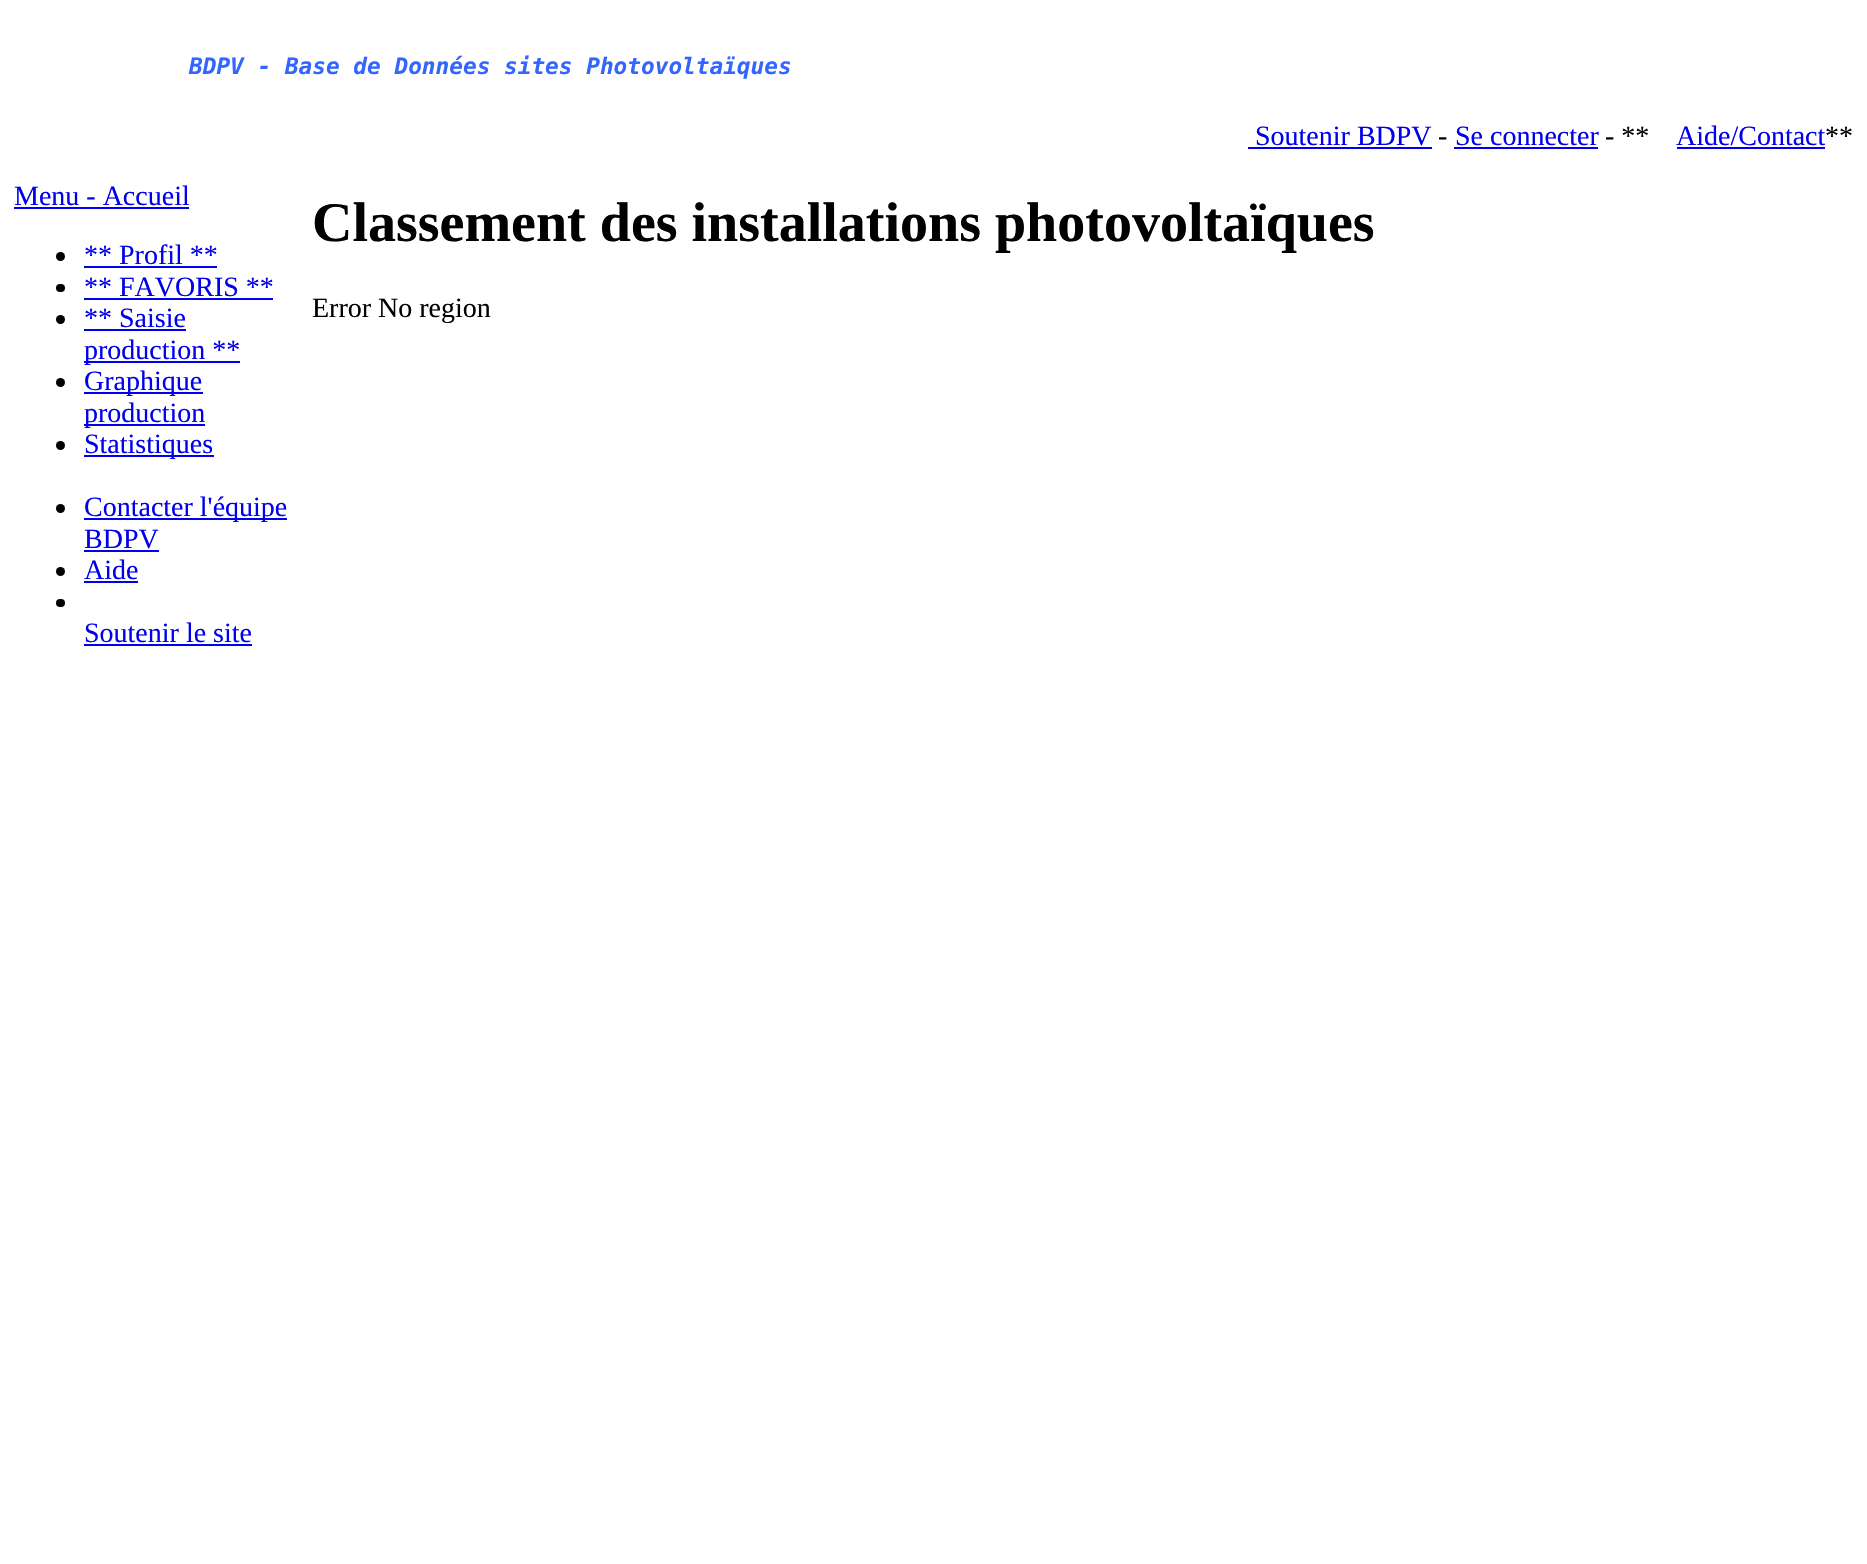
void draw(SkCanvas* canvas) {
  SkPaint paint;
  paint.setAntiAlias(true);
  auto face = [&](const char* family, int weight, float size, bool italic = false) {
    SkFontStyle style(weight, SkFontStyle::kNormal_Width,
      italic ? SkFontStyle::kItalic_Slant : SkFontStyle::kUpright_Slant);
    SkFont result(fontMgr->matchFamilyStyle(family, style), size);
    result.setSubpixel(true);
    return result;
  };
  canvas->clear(0xffffffff);
  {
    const struct { float x, y, w, h; SkColor color; } items[] = {
      {1248, 147, 184, 2, 0xff0000ee},
      {1454, 147, 144, 2, 0xff0000ee},
      {1677, 147, 148, 2, 0xff0000ee},
      {14, 207, 175, 2, 0xff0000ee},
    };
    for (auto [x, y, w, h, color] : items) {
      paint.setColor(color);
      canvas->drawRect(SkRect::MakeXYWH(x, y, w, h), paint);
    }
  }
  paint.setColor(0xff000000);
  canvas->drawCircle(60.5f, 256.5f, 4.5f, paint);
  paint.setColor(0xff0000ee);
  canvas->drawRect(SkRect::MakeXYWH(84, 266, 133, 2), paint);
  paint.setColor(0xff000000);
  canvas->drawRoundRect(SkRect::MakeXYWH(56, 284, 9, 8), 4, 4, paint);
  paint.setColor(0xff0000ee);
  canvas->drawRect(SkRect::MakeXYWH(84, 298, 189, 2), paint);
  paint.setColor(0xff000000);
  canvas->drawCircle(60.5f, 319.5f, 4.5f, paint);
  paint.setColor(0xff0000ee);
  canvas->drawRect(SkRect::MakeXYWH(84, 329, 102, 2), paint);
  canvas->drawRect(SkRect::MakeXYWH(84, 361, 156, 2), paint);
  paint.setColor(0xff000000);
  canvas->drawCircle(60.5f, 382.5f, 4.5f, paint);
  paint.setColor(0xff0000ee);
  canvas->drawRect(SkRect::MakeXYWH(84, 392, 119, 2), paint);
  canvas->drawRect(SkRect::MakeXYWH(84, 424, 121, 2), paint);
  paint.setColor(0xff000000);
  canvas->drawCircle(60.5f, 445.5f, 4.5f, paint);
  paint.setColor(0xff0000ee);
  canvas->drawRect(SkRect::MakeXYWH(84, 455, 130, 2), paint);
  paint.setColor(0xff000000);
  canvas->drawCircle(60.5f, 508.5f, 4.5f, paint);
  paint.setColor(0xff0000ee);
  canvas->drawRect(SkRect::MakeXYWH(84, 518, 203, 2), paint);
  canvas->drawRect(SkRect::MakeXYWH(84, 550, 75, 2), paint);
  paint.setColor(0xff000000);
  canvas->drawCircle(60.5f, 571.5f, 4.5f, paint);
  paint.setColor(0xff0000ee);
  canvas->drawRect(SkRect::MakeXYWH(84, 581, 54, 2), paint);
  paint.setColor(0xff000000);
  canvas->drawRoundRect(SkRect::MakeXYWH(56, 599, 9, 8), 4, 4, paint);
  paint.setColor(0xff0000ee);
  canvas->drawRect(SkRect::MakeXYWH(84, 644, 168, 2), paint);
  auto f0 = face("DejaVu Sans Mono", 700, 22.75f, true);
  paint.setColor(0xff3366ff);
  canvas->drawString("BDPV - Base de Données sites Photovoltaïques", 189, 74, f0, paint);
  auto f1 = face("Liberation Serif", 400, 28);
  paint.setColor(0xff0000ee);
  canvas->drawString("Soutenir BDPV", 1255, 145, f1, paint);
  canvas->drawString("Se connecter", 1455, 145, f1, paint);
  paint.setColor(0xff000000);
  canvas->drawString("- **", 1605, 145, f1, paint);
  paint.setColor(0xff0000ee);
  canvas->drawString("Aide/Contact", 1676, 145, f1, paint);
  paint.setColor(0xff000000);
  canvas->drawString("**", 1825, 145, f1, paint);
  canvas->drawString("-", 1438, 145, f1, paint);
  paint.setColor(0xff0000ee);
  {
    const struct { const char* s; float x, y; } items[] = {
      {"Menu - Accueil", 14, 205},
      {"** Profil **", 84, 264},
      {"** FAVORIS **", 84, 296},
      {"** Saisie", 84, 327},
      {"production **", 84, 359},
      {"Graphique", 84, 390},
      {"production", 84, 422},
      {"Statistiques", 84, 453},
      {"Contacter l'équipe", 84, 516},
      {"BDPV", 84, 548},
      {"Aide", 84, 579},
      {"Soutenir le site", 84, 642},
    };
    for (auto [s, x, y] : items) {
      canvas->drawString(s, x, y, f1, paint);
    }
  }
  auto f2 = face("Liberation Serif", 700, 56);
  paint.setColor(0xff000000);
  canvas->drawString("Classement des installations photovoltaïques", 312, 241, f2, paint);
  canvas->drawString("Error No region", 312, 317, f1, paint);
}
